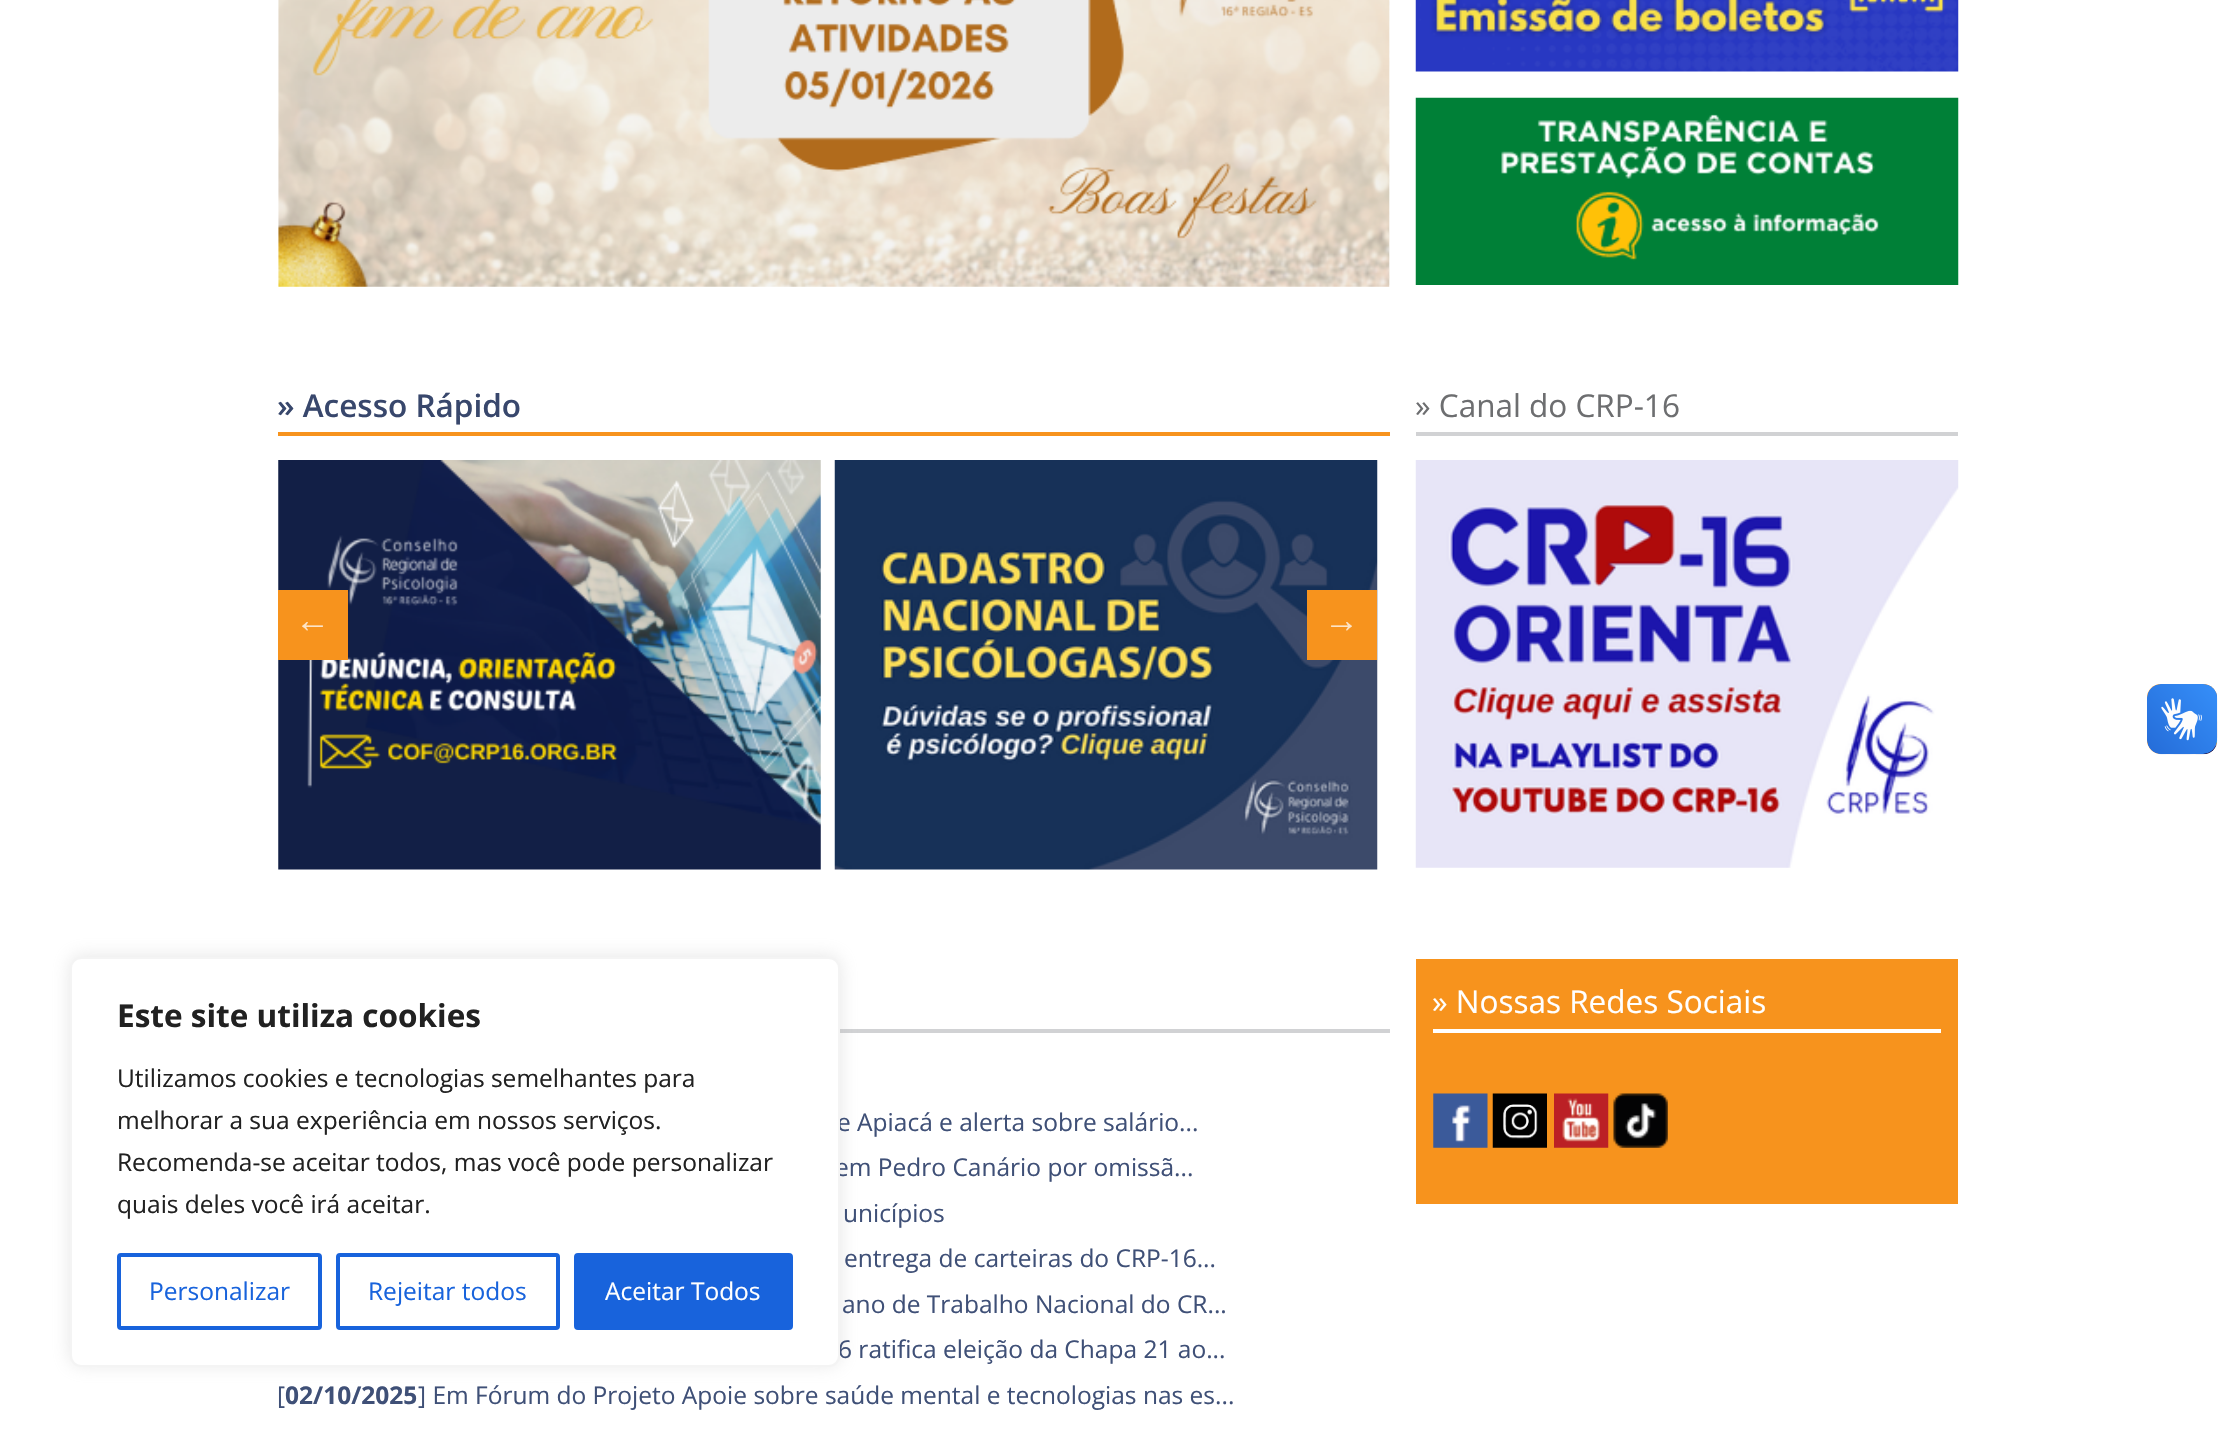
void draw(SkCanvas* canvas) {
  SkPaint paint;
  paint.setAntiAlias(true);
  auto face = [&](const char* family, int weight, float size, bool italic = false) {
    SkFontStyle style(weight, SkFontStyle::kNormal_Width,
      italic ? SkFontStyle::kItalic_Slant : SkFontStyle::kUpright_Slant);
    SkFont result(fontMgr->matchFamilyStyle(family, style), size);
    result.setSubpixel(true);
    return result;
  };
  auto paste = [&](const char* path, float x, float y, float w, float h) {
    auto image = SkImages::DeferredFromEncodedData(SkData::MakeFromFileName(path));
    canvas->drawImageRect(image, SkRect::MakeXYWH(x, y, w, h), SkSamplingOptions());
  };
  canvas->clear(0xffffffff);
  paste("img/1.png", 278, 0, 1112, 287);
  paste("img/2.png", 1389, 0, 1, 285);
  paste("img/3.png", 1415, 0, 544, 72);
  paste("img/4.png", 1415, 97, 544, 188);
  paint.setColor(0xfff7931d);
  canvas->drawRect(SkRect::MakeXYWH(278, 432, 1112, 4), paint);
  paste("img/5.png", 278, 460, 543, 410);
  paste("img/6.png", 834, 460, 544, 410);
  {
    const struct { float x, y, w, h; SkColor color; } items[] = {
      {278, 590, 70, 70, 0xfff7931d},
      {1307, 590, 70, 70, 0xfff7931d},
      {1416, 432, 542, 4, 0xffd1d2d4},
    };
    for (auto [x, y, w, h, color] : items) {
      paint.setColor(color);
      canvas->drawRect(SkRect::MakeXYWH(x, y, w, h), paint);
    }
  }
  paste("img/7.png", 1415, 460, 544, 408);
  paint.setColor(0xfff7931d);
  canvas->drawRoundRect(SkRect::MakeXYWH(2147, 684, 70, 70), 14, 14, paint);
  paste("img/8.png", 2147, 684, 71, 71);
  paste("img/9.png", 2147, 684, 70, 70);
  canvas->drawRect(SkRect::MakeXYWH(1416, 959, 542, 245), paint);
  paint.setColor(0xffffffff);
  canvas->drawRect(SkRect::MakeXYWH(1433, 1029, 508, 4), paint);
  paste("img/10.png", 1433, 1093, 55, 55);
  paste("img/11.png", 1492, 1093, 55, 55);
  paste("img/12.png", 1554, 1093, 55, 55);
  paste("img/13.png", 1613, 1093, 55, 55);
  paint.setColor(0xffd1d2d4);
  canvas->drawRect(SkRect::MakeXYWH(840, 1029, 550, 4), paint);
  paint.setColor(0x4dacabab);
  paint.setMaskFilter(SkMaskFilter::MakeBlur(kNormal_SkBlurStyle, 9));
  canvas->drawRoundRect(SkRect::MakeXYWH(70, 956, 770, 409), 11, 11, paint);
  paint.setMaskFilter(nullptr);
  auto f0 = face("Open Sans", 600, 31.5f);
  paint.setColor(0xff38476c);
  canvas->drawString("» Acesso Rápido", 277, 417, f0, paint);
  auto f1 = face("Liberation Serif", 700, 35);
  paint.setColor(0xfffde4c7);
  canvas->drawString("←", 295, 632, f1, paint);
  canvas->drawString("→", 1324, 632, f1, paint);
  auto f2 = face("Open Sans", 400, 31.5f);
  paint.setColor(0xff6d6e70);
  canvas->drawString("» Canal do CRP-16", 1415, 417, f2, paint);
  paint.setColor(0xffffffff);
  canvas->drawString("» Nossas Redes Sociais", 1432, 1013, f2, paint);
  auto f3 = face("Open Sans", 400, 24.5f);
  paint.setColor(0xff3f5077);
  {
    const struct { const char* s; float x, y; } items[] = {
      {"e Apiacá e alerta sobre salário...", 837, 1131},
      {"em Pedro Canário por omissã...", 835, 1176},
      {"unicípios", 843, 1222},
      {"entrega de carteiras do CRP-16...", 844, 1267},
      {"ano de Trabalho Nacional do CR...", 842, 1313},
      {"6 ratifica eleição da Chapa 21 ao...", 838, 1358},
      {"[", 277, 1404},
    };
    for (auto [s, x, y] : items) {
      canvas->drawString(s, x, y, f3, paint);
    }
  }
  auto f4 = face("Open Sans", 700, 24.5f);
  canvas->drawString("02/10/2025", 285, 1404, f4, paint);
  canvas->drawString("] Em Fórum do Projeto Apoie sobre saúde mental e tecnologias nas es...", 418, 1404, f3, paint);
  paint.setColor(0xffffffff);
  canvas->drawRoundRect(SkRect::MakeXYWH(71, 958, 768, 408), 10, 10, paint);
  paint.setStroke(true);
  paint.setStrokeWidth(2);
  paint.setColor(0xfff4f4f4);
  canvas->drawRoundRect(SkRect::MakeXYWH(71, 958, 768, 408), 10, 10, paint);
  auto f5 = face("Open Sans", 700, 31.5f);
  paint.setStroke(false);
  paint.setColor(0xff212121);
  canvas->drawString("Este site utiliza cookies", 117, 1027, f5, paint);
  {
    const struct { const char* s; float x, y; } items[] = {
      {"Utilizamos cookies e tecnologias semelhantes para", 117, 1087},
      {"melhorar a sua experiência em nossos serviços.", 117, 1129},
      {"Recomenda-se aceitar todos, mas você pode personalizar", 117, 1171},
      {"quais deles você irá aceitar.", 117, 1213},
    };
    for (auto [s, x, y] : items) {
      canvas->drawString(s, x, y, f3, paint);
    }
  }
  paint.setStroke(true);
  paint.setStrokeWidth(4);
  paint.setColor(0xff1863dc);
  canvas->drawRoundRect(SkRect::MakeXYWH(119, 1255, 201, 73), 2, 2, paint);
  paint.setStroke(false);
  canvas->drawString("Personalizar", 149, 1300, f3, paint);
  paint.setStroke(true);
  canvas->drawRoundRect(SkRect::MakeXYWH(338, 1255, 220, 73), 2, 2, paint);
  paint.setStroke(false);
  canvas->drawString("Rejeitar todos", 368, 1300, f3, paint);
  canvas->drawRoundRect(SkRect::MakeXYWH(576, 1255, 215, 73), 2, 2, paint);
  paint.setStroke(true);
  canvas->drawRoundRect(SkRect::MakeXYWH(576, 1255, 215, 73), 2, 2, paint);
  paint.setStroke(false);
  paint.setColor(0xffffffff);
  canvas->drawString("Aceitar Todos", 605, 1300, f3, paint);
}
